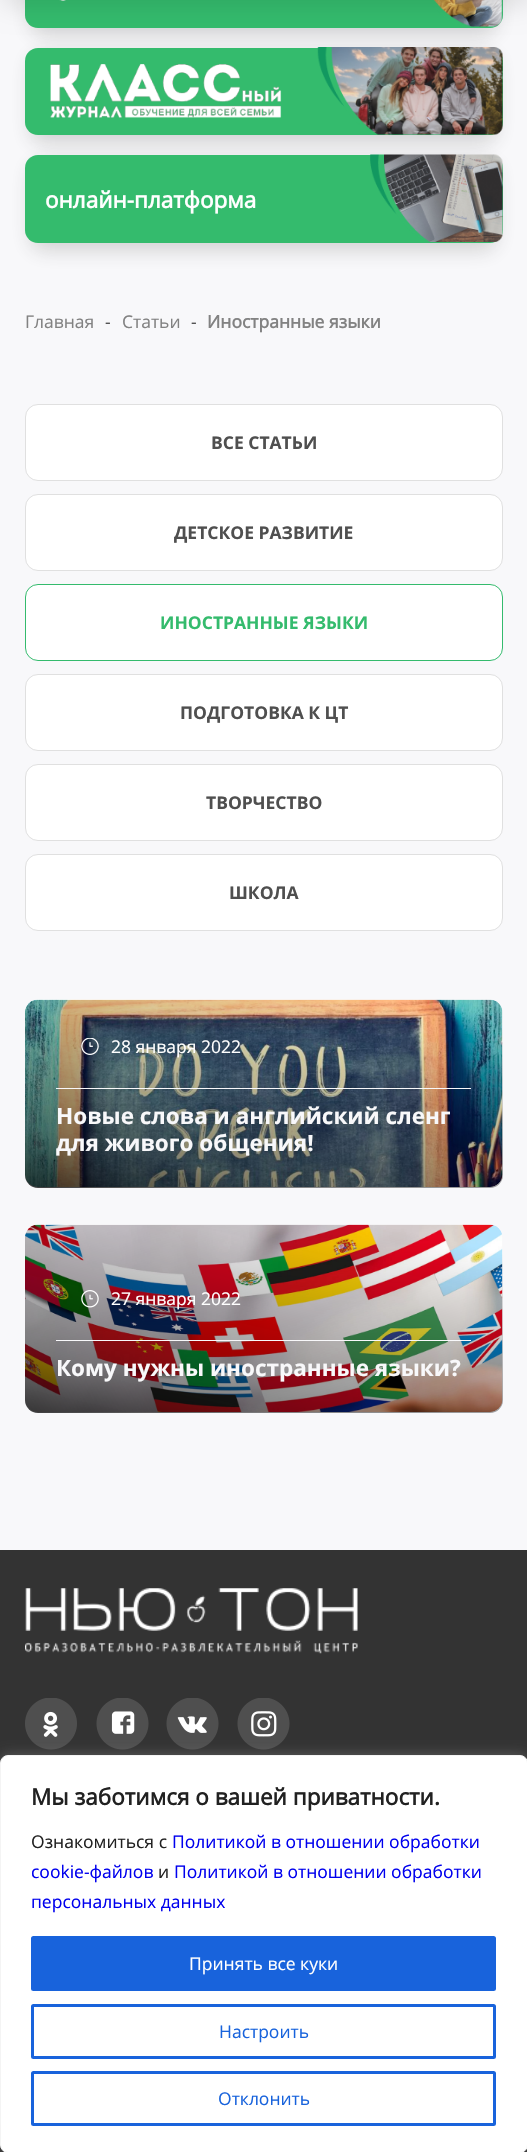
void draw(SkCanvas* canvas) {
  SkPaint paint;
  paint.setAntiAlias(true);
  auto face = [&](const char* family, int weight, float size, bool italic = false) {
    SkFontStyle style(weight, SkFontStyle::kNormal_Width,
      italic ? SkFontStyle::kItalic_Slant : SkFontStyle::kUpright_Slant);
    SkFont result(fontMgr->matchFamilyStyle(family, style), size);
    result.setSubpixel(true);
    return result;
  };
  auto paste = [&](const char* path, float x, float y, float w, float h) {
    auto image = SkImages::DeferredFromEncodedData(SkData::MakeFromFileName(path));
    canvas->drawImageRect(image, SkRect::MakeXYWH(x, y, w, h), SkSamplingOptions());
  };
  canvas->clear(0xfff8f8fa);
  paint.setColor(0x33333333);
  paint.setMaskFilter(SkMaskFilter::MakeBlur(kNormal_SkBlurStyle, 10));
  canvas->drawRoundRect(SkRect::MakeXYWH(31, -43, 465, 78), 13, 13, paint);
  paint.setMaskFilter(nullptr);
  paint.setMaskFilter(SkMaskFilter::MakeBlur(kNormal_SkBlurStyle, 10));
  canvas->drawRoundRect(SkRect::MakeXYWH(31, 55, 465, 88), 13, 13, paint);
  paint.setMaskFilter(nullptr);
  paint.setColor(0xff34bb6d);
  canvas->drawRoundRect(SkRect::MakeXYWH(25, -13, 478, 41), 13, 13, paint);
  paste("img/1.png", 59, 0, 7, 1);
  paste("img/2.png", 433, 0, 70, 27);
  paint.setColor(0x1a000000);
  paint.setMaskFilter(SkMaskFilter::MakeBlur(kNormal_SkBlurStyle, 12.5f));
  canvas->drawRect(SkRect::MakeXYWH(3, -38, 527, 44), paint);
  paint.setMaskFilter(nullptr);
  paint.setColor(0x33333333);
  paint.setMaskFilter(SkMaskFilter::MakeBlur(kNormal_SkBlurStyle, 10));
  canvas->drawRoundRect(SkRect::MakeXYWH(31, 163, 465, 87), 13, 13, paint);
  paint.setMaskFilter(nullptr);
  paint.setColor(0xff34bb6d);
  canvas->drawRoundRect(SkRect::MakeXYWH(25, 48, 478, 87), 13, 13, paint);
  paste("img/3.png", 50, 64, 232, 54);
  paste("img/4.png", 317, 47, 186, 88);
  canvas->drawRoundRect(SkRect::MakeXYWH(25, 155, 478, 88), 13, 13, paint);
  paste("img/5.png", 370, 154, 133, 88);
  paint.setColor(0xffffffff);
  canvas->drawRoundRect(SkRect::MakeXYWH(25.5f, 404.5f, 477, 76), 12.5f, 12.5f, paint);
  paint.setStroke(true);
  paint.setStrokeWidth(1);
  paint.setColor(0xffe0e0e0);
  canvas->drawRoundRect(SkRect::MakeXYWH(25.5f, 404.5f, 477, 76), 12.5f, 12.5f, paint);
  paint.setStroke(false);
  paint.setColor(0xffffffff);
  canvas->drawRoundRect(SkRect::MakeXYWH(25.5f, 494.5f, 477, 76), 12.5f, 12.5f, paint);
  paint.setStroke(true);
  paint.setColor(0xffe0e0e0);
  canvas->drawRoundRect(SkRect::MakeXYWH(25.5f, 494.5f, 477, 76), 12.5f, 12.5f, paint);
  paint.setStroke(false);
  paint.setColor(0xffffffff);
  canvas->drawRoundRect(SkRect::MakeXYWH(25.5f, 584.5f, 477, 76), 12.5f, 12.5f, paint);
  paint.setStroke(true);
  paint.setColor(0xff34bb6d);
  canvas->drawRoundRect(SkRect::MakeXYWH(25.5f, 584.5f, 477, 76), 12.5f, 12.5f, paint);
  paint.setStroke(false);
  paint.setColor(0xffffffff);
  canvas->drawRoundRect(SkRect::MakeXYWH(25.5f, 674.5f, 477, 76), 12.5f, 12.5f, paint);
  paint.setStroke(true);
  paint.setColor(0xffe0e0e0);
  canvas->drawRoundRect(SkRect::MakeXYWH(25.5f, 674.5f, 477, 76), 12.5f, 12.5f, paint);
  paint.setStroke(false);
  paint.setColor(0xffffffff);
  canvas->drawRoundRect(SkRect::MakeXYWH(25.5f, 764.5f, 477, 76), 12.5f, 12.5f, paint);
  paint.setStroke(true);
  paint.setColor(0xffe0e0e0);
  canvas->drawRoundRect(SkRect::MakeXYWH(25.5f, 764.5f, 477, 76), 12.5f, 12.5f, paint);
  paint.setStroke(false);
  paint.setColor(0xffffffff);
  canvas->drawRoundRect(SkRect::MakeXYWH(25.5f, 854.5f, 477, 76), 12.5f, 12.5f, paint);
  paint.setStroke(true);
  paint.setColor(0xffe0e0e0);
  canvas->drawRoundRect(SkRect::MakeXYWH(25.5f, 854.5f, 477, 76), 12.5f, 12.5f, paint);
  paste("img/6.png", 25, 999, 478, 188);
  paint.setStroke(false);
  {
    const SkColor colors[] = {0x00050505, 0x7a050505, 0xcf000000};
    const float stops[] = {0.09f, 0.76f, 1};
    const SkPoint ends[] = {{296, 953}, {229, 1247}};
    paint.setShader(SkGradientShader::MakeLinear(ends, colors, stops, 3, SkTileMode::kClamp));
    paint.setAlpha(255);
  }
  canvas->drawRoundRect(SkRect::MakeXYWH(25, 1000, 478, 188), 13, 13, paint);
  paste("img/7.png", 81, 1038, 18, 17);
  paint.setShader(nullptr);
  paint.setColor(0xfff8f8fa);
  canvas->drawRect(SkRect::MakeXYWH(56, 1088, 415, 1), paint);
  paste("img/8.png", 25, 1224, 478, 188);
  {
    const SkColor colors[] = {0x00050505, 0x7a050505, 0xcf000000};
    const float stops[] = {0.09f, 0.76f, 1};
    const SkPoint ends[] = {{296, 1178}, {229, 1472}};
    paint.setShader(SkGradientShader::MakeLinear(ends, colors, stops, 3, SkTileMode::kClamp));
    paint.setAlpha(255);
  }
  canvas->drawRoundRect(SkRect::MakeXYWH(25, 1225, 478, 188), 13, 13, paint);
  paste("img/9.png", 81, 1290, 18, 18);
  paint.setShader(nullptr);
  paint.setColor(0xfff8f8fa);
  canvas->drawRect(SkRect::MakeXYWH(56, 1340, 415, 1), paint);
  paint.setColor(0xff333333);
  canvas->drawRect(SkRect::MakeXYWH(0, 1550, 527, 602), paint);
  paste("img/10.png", 25, 1588, 333, 66);
  paste("img/11.png", 25, 1698, 52, 52);
  paste("img/12.png", 96, 1698, 53, 52);
  paste("img/13.png", 166, 1698, 53, 52);
  paste("img/14.png", 237, 1698, 53, 52);
  paint.setColor(0x4dacabab);
  paint.setMaskFilter(SkMaskFilter::MakeBlur(kNormal_SkBlurStyle, 6));
  canvas->drawRoundRect(SkRect::MakeXYWH(0, 1754, 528, 397), 8, 8, paint);
  paint.setMaskFilter(nullptr);
  paint.setColor(0xffffffff);
  canvas->drawRoundRect(SkRect::MakeXYWH(0.5f, 1755.5f, 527, 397), 7.5f, 7.5f, paint);
  paint.setStroke(true);
  paint.setColor(0xfff4f4f4);
  canvas->drawRoundRect(SkRect::MakeXYWH(0.5f, 1755.5f, 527, 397), 7.5f, 7.5f, paint);
  paint.setStroke(false);
  paint.setColor(0xff1863dc);
  canvas->drawRoundRect(SkRect::MakeXYWH(32.5f, 1937.5f, 462, 52), 1, 1, paint);
  paint.setStroke(true);
  paint.setStrokeWidth(3);
  canvas->drawRoundRect(SkRect::MakeXYWH(32.5f, 1937.5f, 462, 52), 1, 1, paint);
  canvas->drawRoundRect(SkRect::MakeXYWH(32.5f, 2005.5f, 462, 52), 1, 1, paint);
  canvas->drawRoundRect(SkRect::MakeXYWH(32.5f, 2072.5f, 462, 52), 1, 1, paint);
  auto f0 = face("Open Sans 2", 700, 22.5f);
  paint.setStroke(false);
  paint.setColor(0xffffffff);
  canvas->drawString("онлайн-платформа", 45, 208, f0, paint);
  auto f1 = face("Open Sans", 400, 17.5f);
  paint.setColor(0xff828282);
  canvas->drawString("Главная", 25, 328, f1, paint);
  paint.setColor(0xff4f4f4f);
  canvas->drawString("-", 105, 328, f1, paint);
  paint.setColor(0xff828282);
  canvas->drawString("Статьи", 122, 328, f1, paint);
  paint.setColor(0xff4f4f4f);
  canvas->drawString("-", 191, 328, f1, paint);
  auto f2 = face("Open Sans 2", 700, 17.5f);
  paint.setColor(0xff828282);
  canvas->drawString("Иностранные языки", 207, 328, f2, paint);
  auto f3 = face("Open Sans", 700, 17.5f);
  paint.setColor(0xff4f4f4f);
  canvas->drawString("ВСЕ СТАТЬИ", 211, 449, f3, paint);
  canvas->drawString("ДЕТСКОЕ РАЗВИТИЕ", 174, 539, f3, paint);
  paint.setColor(0xff34bb6d);
  canvas->drawString("ИНОСТРАННЫЕ ЯЗЫКИ", 160, 629, f3, paint);
  paint.setColor(0xff4f4f4f);
  {
    const struct { const char* s; float x, y; } items[] = {
      {"ПОДГОТОВКА К ЦТ", 180, 719},
      {"ТВОРЧЕСТВО", 206, 809},
      {"ШКОЛА", 229, 899},
    };
    for (auto [s, x, y] : items) {
      canvas->drawString(s, x, y, f3, paint);
    }
  }
  paint.setColor(0xffffffff);
  canvas->drawString("28 января 2022", 111, 1053, f1, paint);
  auto f4 = face("Open Sans", 700, 22.5f);
  paint.setColor(0xfff8f8fa);
  canvas->drawString("Новые слова и английский сленг", 56, 1124, f4, paint);
  canvas->drawString("для живого общения!", 56, 1151, f4, paint);
  paint.setColor(0xffffffff);
  canvas->drawString("27 января 2022", 111, 1305, f1, paint);
  paint.setColor(0xfff8f8fa);
  canvas->drawString("Кому нужны иностранные языки?", 56, 1376, f4, paint);
  paint.setColor(0xff212121);
  canvas->drawString("Мы заботимся о вашей приватности.", 31, 1805, f0, paint);
  canvas->drawString("Ознакомиться с", 31, 1848, f1, paint);
  paint.setColor(0xff0000ee);
  canvas->drawString("Политикой в отношении обработки", 172, 1848, f1, paint);
  canvas->drawString("cookie-файлов", 31, 1878, f1, paint);
  paint.setColor(0xff212121);
  canvas->drawString("и", 158, 1878, f1, paint);
  paint.setColor(0xff0000ee);
  canvas->drawString("Политикой в отношении обработки", 174, 1878, f1, paint);
  canvas->drawString("персональных данных", 31, 1908, f1, paint);
  paint.setColor(0xffffffff);
  canvas->drawString("Принять все куки", 189, 1970, f1, paint);
  paint.setColor(0xff1863dc);
  canvas->drawString("Настроить", 219, 2038, f1, paint);
  canvas->drawString("Отклонить", 218, 2105, f1, paint);
}
